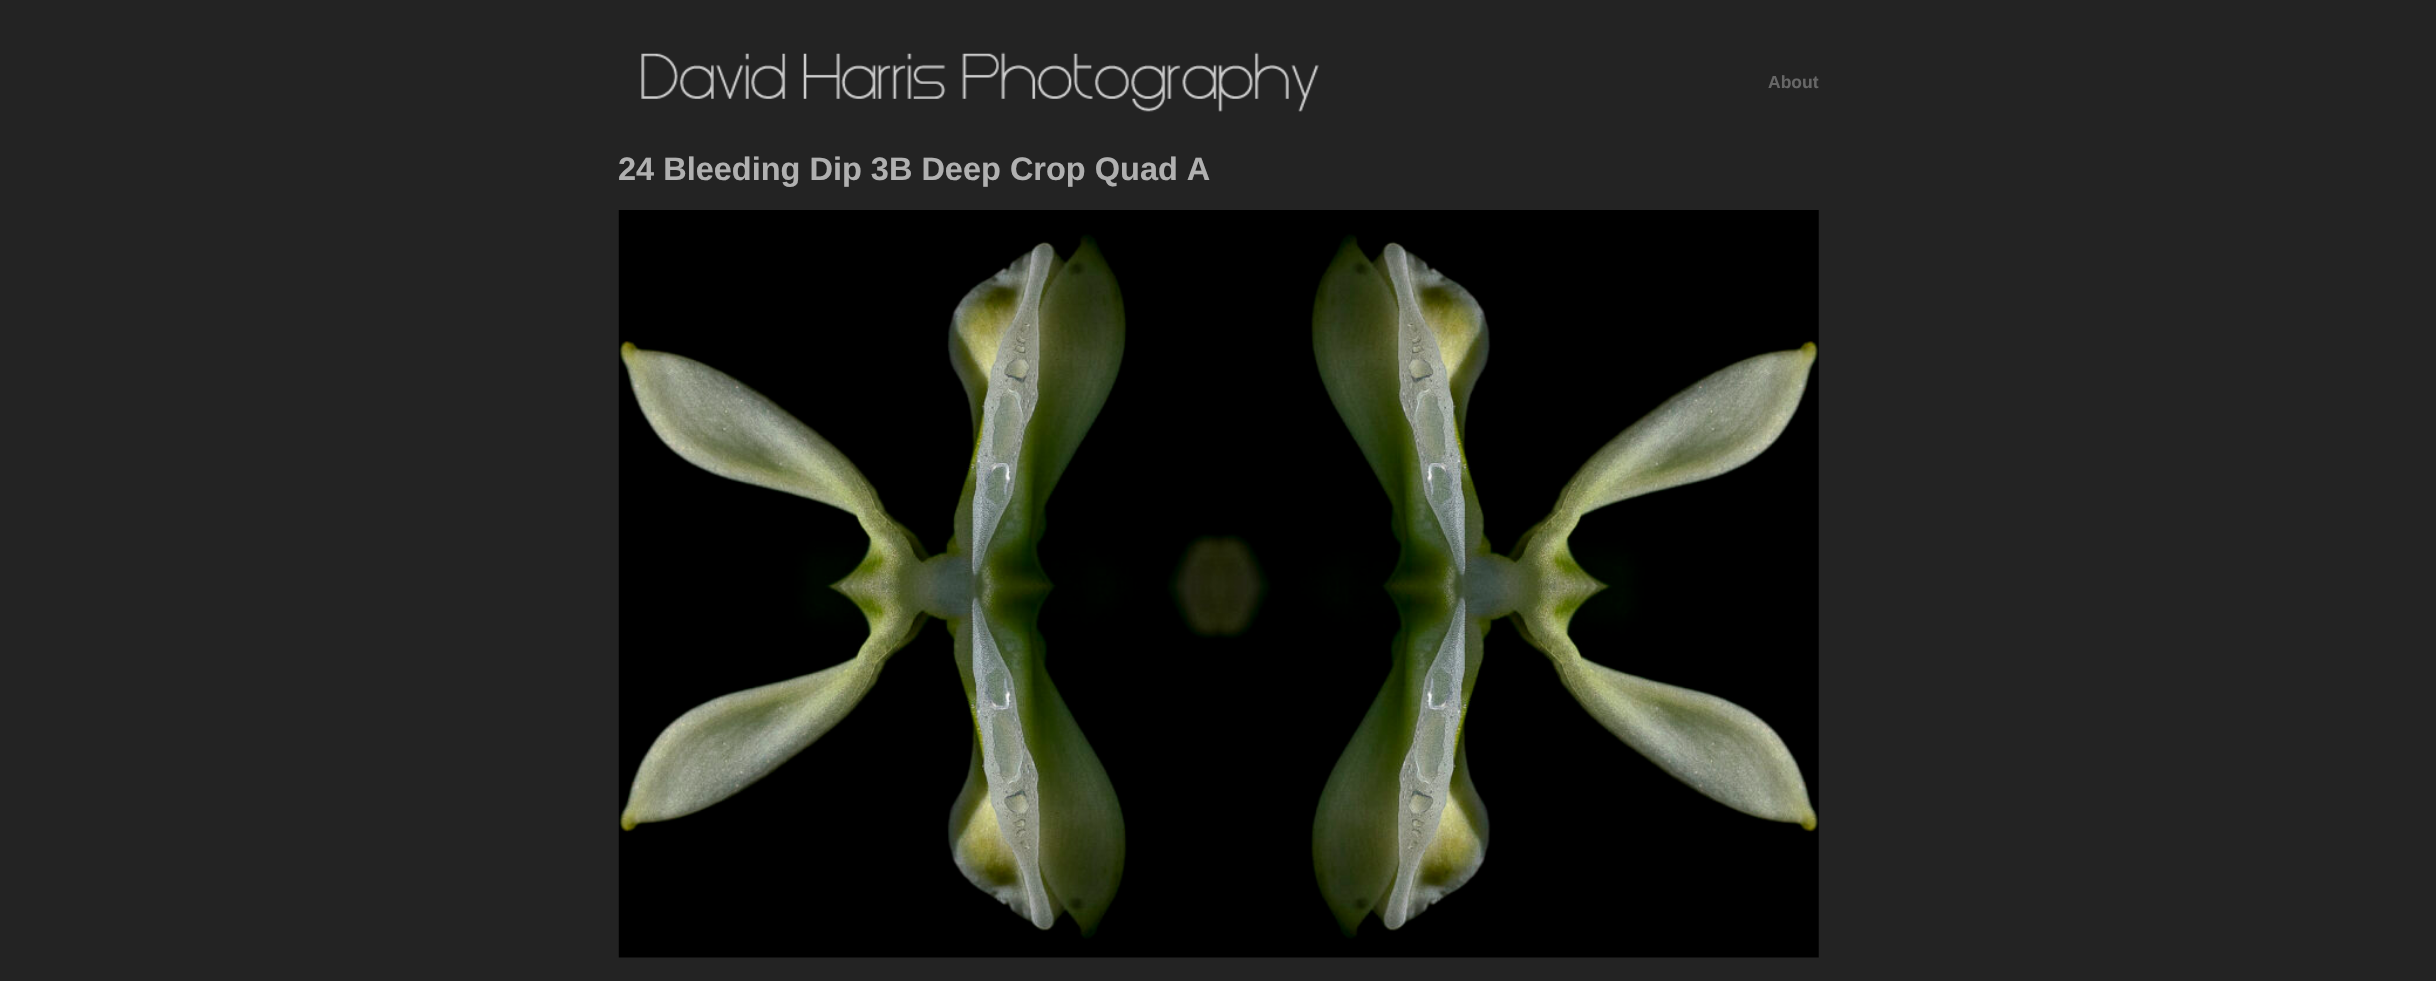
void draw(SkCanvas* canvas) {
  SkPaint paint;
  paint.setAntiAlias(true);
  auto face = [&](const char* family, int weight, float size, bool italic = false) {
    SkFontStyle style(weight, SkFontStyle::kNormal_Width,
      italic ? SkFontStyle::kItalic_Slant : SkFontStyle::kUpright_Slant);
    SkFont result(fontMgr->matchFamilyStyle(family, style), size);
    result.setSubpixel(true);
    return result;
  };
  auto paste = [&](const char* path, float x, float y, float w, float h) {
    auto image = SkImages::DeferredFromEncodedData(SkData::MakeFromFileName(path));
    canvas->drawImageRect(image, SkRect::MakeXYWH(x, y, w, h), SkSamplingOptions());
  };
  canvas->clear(0xff232323);
  paste("img/1.png", 641, 52, 678, 60);
  paste("img/2.png", 618, 210, 1201, 748);
  auto f0 = face("Liberation Sans", 700, 17.5f);
  paint.setColor(0xff676767);
  canvas->drawString("About", 1768, 88, f0, paint);
  auto f1 = face("Liberation Sans", 700, 32.5f);
  paint.setColor(0xffb0b0b0);
  canvas->drawString("24 Bleeding Dip 3B Deep Crop Quad A", 618, 180, f1, paint);
}
